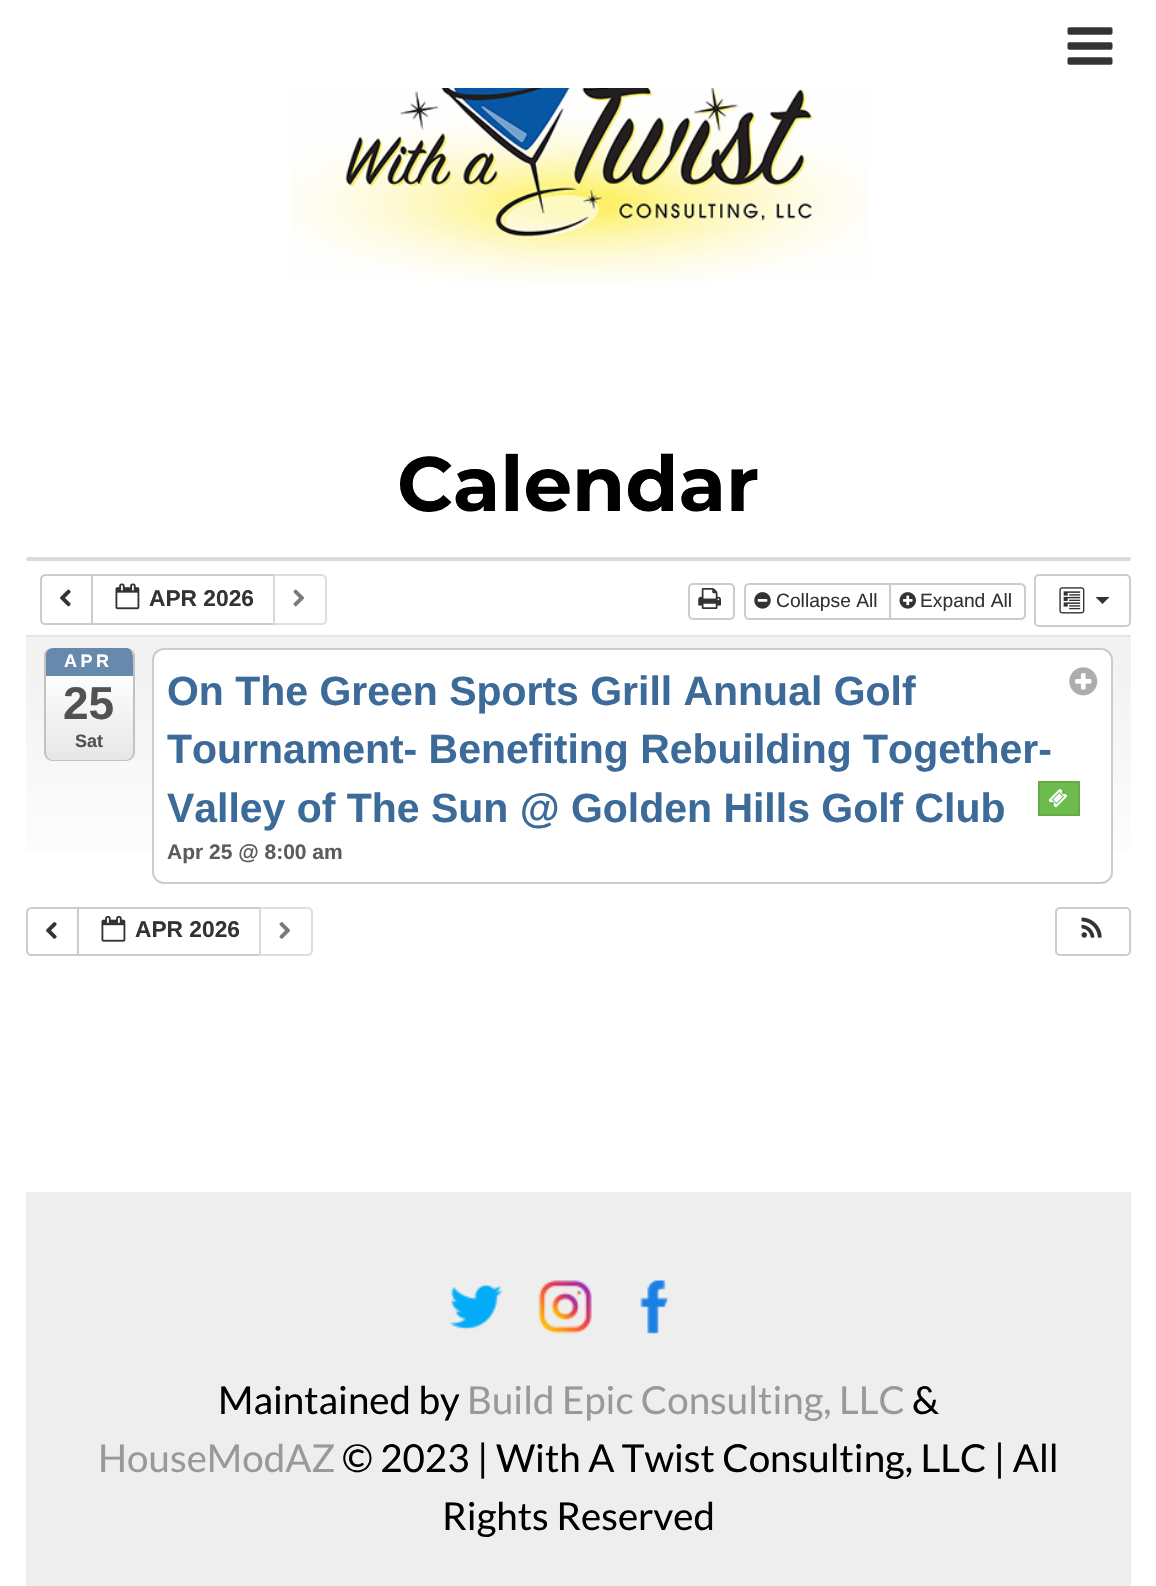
void draw(SkCanvas* canvas) {
  SkPaint paint;
  paint.setAntiAlias(true);
  auto face = [&](const char* family, int weight, float size, bool italic = false) {
    SkFontStyle style(weight, SkFontStyle::kNormal_Width,
      italic ? SkFontStyle::kItalic_Slant : SkFontStyle::kUpright_Slant);
    SkFont result(fontMgr->matchFamilyStyle(family, style), size);
    result.setSubpixel(true);
    return result;
  };
  auto writeSpaced = [&](const char* s, float x, float y, const SkFont& font, const SkPaint& ink, float letter, float word) {
    std::vector<SkGlyphID> glyphs(font.countText(s, strlen(s), SkTextEncoding::kUTF8));
    std::vector<float> xs(glyphs.size());
    font.textToGlyphs(s, strlen(s), SkTextEncoding::kUTF8, glyphs);
    font.getXPos(glyphs, xs, x);
    float extra = 0;
    for (size_t i = 0; i < glyphs.size(); i++) {
      xs[i] += extra;
      extra += letter + word * (glyphs[i] == font.unicharToGlyph(' '));
    }
    canvas->drawTextBlob(SkTextBlob::MakeFromPosHGlyphs(glyphs, xs, y, font), 0, 0, ink);
  };
  auto paste = [&](const char* path, float x, float y, float w, float h) {
    auto image = SkImages::DeferredFromEncodedData(SkData::MakeFromFileName(path));
    canvas->drawImageRect(image, SkRect::MakeXYWH(x, y, w, h), SkSamplingOptions());
  };
  auto shape = [&](const char* data, bool evenOdd = false) {
    SkPath result = *SkParsePath::FromSVGString(data);
    if (evenOdd) result.setFillType(SkPathFillType::kEvenOdd);
    return result;
  };
  canvas->clear(0xffffffff);
  paste("img/1.png", 1067, 27, 46, 38);
  paste("img/2.png", 290, 88, 578, 194);
  paint.setColor(0xffdbdbdb);
  canvas->drawRoundRect(SkRect::MakeXYWH(26, 557, 1105, 4), 2, 2, paint);
  paint.setStroke(true);
  paint.setStrokeWidth(2);
  paint.setColor(0xffcccccc);
  canvas->drawPath(shape("M45 575H92V624H45C43 624 41 622 41 620V579C41 577 43 575 45 575Z"), paint);
  paste("img/3.png", 60, 589, 11, 18);
  canvas->drawRect(SkRect::MakeXYWH(92, 575, 182, 49), paint);
  paste("img/4.png", 115, 583, 25, 27);
  paint.setStroke(false);
  paint.setColor(0xa6ffffff);
  canvas->drawPath(shape("M273 574H322C325 574 327 576 327 579V620C327 623 325 625 322 625H273Z"), paint);
  paint.setStroke(true);
  paint.setColor(0xa6cccccc);
  canvas->drawPath(shape("M274 575H322C324 575 326 577 326 579V620C326 622 324 624 322 624H274Z"), paint);
  paste("img/5.png", 293, 589, 11, 18);
  paint.setColor(0xffcccccc);
  canvas->drawRoundRect(SkRect::MakeXYWH(689, 584, 45, 35), 4, 4, paint);
  paste("img/6.png", 698, 588, 23, 21);
  canvas->drawPath(shape("M749 584H890V619H749C747 619 745 617 745 615V588C745 586 747 584 749 584Z"), paint);
  paste("img/7.png", 754, 592, 17, 17);
  paint.setStroke(false);
  paint.setColor(0xffffffff);
  canvas->drawPath(shape("M890 584H1021C1023 584 1025 586 1025 588V615C1025 617 1023 619 1021 619H890Z"), paint);
  paint.setStroke(true);
  paint.setColor(0xffcccccc);
  canvas->drawPath(shape("M890 584H1021C1023 584 1025 586 1025 588V615C1025 617 1023 619 1021 619H890Z"), paint);
  paste("img/8.png", 899, 592, 17, 17);
  canvas->drawRoundRect(SkRect::MakeXYWH(1035, 575, 95, 51), 4, 4, paint);
  paste("img/9.png", 1059, 587, 26, 27);
  paint.setStroke(false);
  paint.setColor(0xff333333);
  canvas->drawPath(shape("M1095.5 597H1109.5L1102.5 604Z"), paint);
  {
    const SkColor colors[] = {0xfff2f2f2, 0xfff2f2f2, 0xffffffff};
    const float stops[] = {0, 0.09f, 1};
    const SkPoint ends[] = {{578, 637}, {578, 896}};
    paint.setShader(SkGradientShader::MakeLinear(ends, colors, stops, 3, SkTileMode::kClamp));
    paint.setAlpha(255);
  }
  canvas->drawRect(SkRect::MakeXYWH(26, 637, 1105, 214), paint);
  paint.setShader(nullptr);
  paint.setColor(0xffe5e5e5);
  canvas->drawRect(SkRect::MakeXYWH(26, 635, 1105, 2), paint);
  canvas->save();
  canvas->clipPath(shape("M53 648H126C131 648 135 652 135 657V752C135 757 131 761 126 761H53C48 761 44 757 44 752V657C44 652 48 648 53 648Z"), true);
  {
    const SkColor colors[] = {0xffffffff, 0xffffffff, 0xffe7e7e7};
    const float stops[] = {0, 0.2f, 1};
    const SkPoint ends[] = {{89, 648}, {89, 760}};
    paint.setShader(SkGradientShader::MakeLinear(ends, colors, stops, 3, SkTileMode::kClamp));
    paint.setAlpha(255);
  }
  canvas->drawRect(SkRect::MakeXYWH(46, 648, 87, 112), paint);
  canvas->restore();
  paint.setShader(nullptr);
  paint.setColor(0xffc2c2c2);
  canvas->drawPath(shape("M52 648H126C131 648 135 651 135 656V752C135 757 131 761 126 761H52C48 761 44 757 44 752V656C44 651 48 648 52 648ZM52 648H126C130 648 133 651 133 656V752C133 756 130 760 126 760H52C49 760 46 756 46 752V656C46 651 49 648 52 648Z", true), paint);
  paint.setColor(0xff6689ac);
  canvas->drawPath(shape("M53 648C49 648 46 651 46 655V676H133V663C133 658 134 648 126 648Z"), paint);
  paint.setColor(0xffffffff);
  canvas->drawRoundRect(SkRect::MakeXYWH(153, 649, 959, 234), 11, 11, paint);
  paint.setStroke(true);
  paint.setColor(0xffcccccc);
  canvas->drawRoundRect(SkRect::MakeXYWH(153, 649, 959, 234), 11, 11, paint);
  paste("img/10.png", 1069, 667, 29, 29);
  paint.setStroke(false);
  paint.setColor(0xff6dbb4f);
  canvas->drawRect(SkRect::MakeXYWH(1039, 782, 40, 33), paint);
  paint.setStroke(true);
  paint.setColor(0xff61ad43);
  canvas->drawRect(SkRect::MakeXYWH(1039, 782, 40, 33), paint);
  paste("img/11.png", 1048, 789, 19, 19);
  paint.setColor(0xffcccccc);
  canvas->drawPath(shape("M31 908H78V955H31C29 955 27 953 27 951V912C27 910 29 908 31 908Z"), paint);
  paste("img/12.png", 46, 922, 11, 17);
  canvas->drawRect(SkRect::MakeXYWH(78, 908, 182, 47), paint);
  paste("img/13.png", 101, 916, 25, 26);
  paint.setStroke(false);
  paint.setColor(0xa6ffffff);
  canvas->drawPath(shape("M259 907H308C311 907 313 909 313 912V951C313 954 311 956 308 956H259Z"), paint);
  paint.setStroke(true);
  paint.setColor(0xa6cccccc);
  canvas->drawPath(shape("M260 908H308C310 908 312 910 312 912V951C312 953 310 955 308 955H260Z"), paint);
  paste("img/14.png", 279, 922, 11, 17);
  paint.setColor(0xffcccccc);
  canvas->drawRoundRect(SkRect::MakeXYWH(1056, 908, 74, 47), 4, 4, paint);
  paste("img/15.png", 1081, 917, 21, 21);
  paint.setStroke(false);
  paint.setColor(0xffeeeeee);
  canvas->drawRect(SkRect::MakeXYWH(26, 1192, 1105, 394), paint);
  paste("img/16.png", 449, 1284, 54, 46);
  paste("img/17.png", 538, 1280, 54, 54);
  paste("img/18.png", 640, 1280, 29, 54);
  auto f0 = face("Montserrat", 700, 77);
  paint.setColor(0xff000000);
  canvas->drawString("Calendar", 397, 511, f0, paint);
  auto f1 = face("Liberation Sans", 700, 22.75f);
  paint.setColor(0xff333333);
  canvas->drawString("APR 2026", 149, 606, f1, paint);
  auto f2 = face("Liberation Sans", 400, 19.25f);
  canvas->drawString("Collapse All", 776, 607, f2, paint);
  canvas->drawString("Expand All", 920, 607, f2, paint);
  auto f3 = face("Liberation Sans", 700, 18);
  paint.setColor(0xffffffff);
  writeSpaced("APR", 64, 667, f3, paint, 3.5f, 0);
  auto f4 = face("Liberation Sans", 700, 46);
  paint.setColor(0xff525252);
  canvas->drawString("25", 63, 719, f4, paint);
  canvas->drawString("Sat", 75, 747, f3, paint);
  auto f5 = face("Liberation Sans", 700, 40.95f);
  paint.setColor(0xff3d6b99);
  {
    const struct { const char* s; float x, y; } items[] = {
      {"On The Green Sports Grill Annual Golf", 167, 705},
      {"Tournament- Benefiting Rebuilding Together-", 167, 763},
      {"Valley of The Sun @ Golden Hills Golf Club", 167, 822},
    };
    for (auto [s, x, y] : items) {
      canvas->drawString(s, x, y, f5, paint);
    }
  }
  auto f6 = face("Liberation Sans", 700, 21);
  paint.setColor(0xff5c5c5c);
  canvas->drawString("Apr 25 @ 8:00 am", 167, 859, f6, paint);
  paint.setColor(0xff333333);
  canvas->drawString("APR 2026", 135, 937, f1, paint);
  auto f7 = face("Lato", 400, 38.5f);
  paint.setColor(0xff000000);
  canvas->drawString("Maintained by", 218, 1414, f7, paint);
  paint.setColor(0xff999999);
  canvas->drawString("Build Epic Consulting, LLC", 467, 1414, f7, paint);
  paint.setColor(0xff000000);
  canvas->drawString("&", 912, 1414, f7, paint);
  paint.setColor(0xff999999);
  canvas->drawString("HouseModAZ", 98, 1472, f7, paint);
  paint.setColor(0xff000000);
  canvas->drawString("© 2023 | With A Twist Consulting, LLC | All", 342, 1472, f7, paint);
  canvas->drawString("Rights Reserved", 442, 1530, f7, paint);
}
